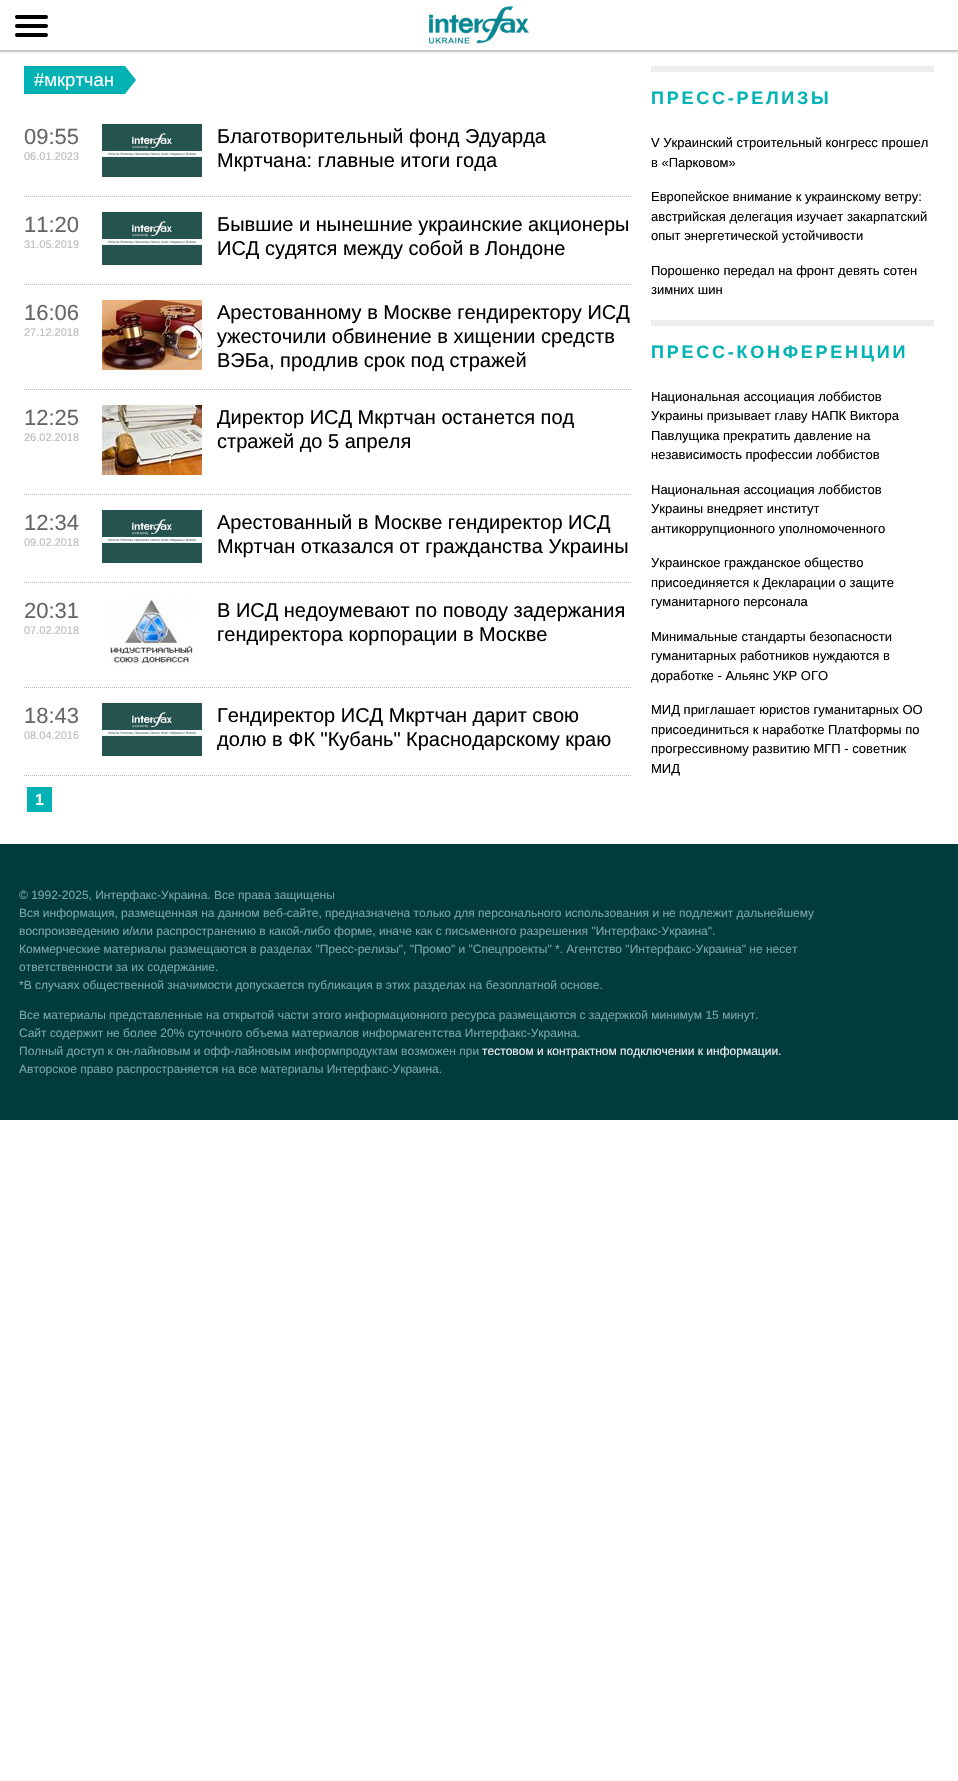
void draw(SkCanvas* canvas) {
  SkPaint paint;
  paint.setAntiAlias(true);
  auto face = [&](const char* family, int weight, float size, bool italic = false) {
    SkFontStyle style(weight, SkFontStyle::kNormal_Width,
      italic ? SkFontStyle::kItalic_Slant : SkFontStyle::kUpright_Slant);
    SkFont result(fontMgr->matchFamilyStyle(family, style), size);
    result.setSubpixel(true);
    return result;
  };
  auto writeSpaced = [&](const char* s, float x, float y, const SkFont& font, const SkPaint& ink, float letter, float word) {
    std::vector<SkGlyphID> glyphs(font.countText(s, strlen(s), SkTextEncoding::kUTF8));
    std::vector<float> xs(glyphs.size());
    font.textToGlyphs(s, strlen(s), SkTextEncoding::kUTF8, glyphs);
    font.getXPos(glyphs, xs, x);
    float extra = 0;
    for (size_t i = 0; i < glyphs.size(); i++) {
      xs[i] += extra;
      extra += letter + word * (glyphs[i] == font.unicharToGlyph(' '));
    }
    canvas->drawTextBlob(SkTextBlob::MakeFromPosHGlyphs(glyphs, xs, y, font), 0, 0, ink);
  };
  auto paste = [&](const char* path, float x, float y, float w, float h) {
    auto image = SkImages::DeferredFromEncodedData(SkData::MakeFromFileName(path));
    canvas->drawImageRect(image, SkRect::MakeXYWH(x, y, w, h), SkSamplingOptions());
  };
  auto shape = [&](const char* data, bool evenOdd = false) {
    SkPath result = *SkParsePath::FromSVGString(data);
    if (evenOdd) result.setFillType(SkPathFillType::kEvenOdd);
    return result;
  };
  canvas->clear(0xffffffff);
  canvas->save();
  canvas->clipRect(SkRect::MakeXYWH(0, 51, 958, 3));
  paint.setColor(0xffc0c0c0);
  paint.setMaskFilter(SkMaskFilter::MakeBlur(kNormal_SkBlurStyle, 1));
  canvas->drawRect(SkRect::MakeXYWH(-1, -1, 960, 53), paint);
  paint.setMaskFilter(nullptr);
  canvas->restore();
  canvas->drawRect(SkRect::MakeXYWH(0, 50, 958, 1), paint);
  paint.setColor(0xff000000);
  canvas->drawRoundRect(SkRect::MakeXYWH(15, 15, 33, 4), 2, 2, paint);
  canvas->drawRoundRect(SkRect::MakeXYWH(15, 24, 33, 4), 2, 2, paint);
  canvas->drawRoundRect(SkRect::MakeXYWH(15, 33, 33, 4), 2, 2, paint);
  paste("img/1.png", 429, 6, 100, 38);
  paint.setColor(0xff00b2b3);
  canvas->drawRect(SkRect::MakeXYWH(24, 66, 101, 28), paint);
  canvas->drawPath(shape("M125 94V66L136 80Z"), paint);
  paint.setStroke(true);
  paint.setStrokeWidth(1);
  paint.setColor(0xffbbbbbb);
  paint.setPathEffect(SkDashPathEffect::Make({{1, 1}}, 0));
  canvas->drawPath(shape("M24 196.5H631"), paint);
  paint.setPathEffect(nullptr);
  paste("img/2.png", 102, 124, 100, 53);
  paint.setPathEffect(SkDashPathEffect::Make({{1, 1}}, 0));
  canvas->drawPath(shape("M24 284.5H631"), paint);
  paint.setPathEffect(nullptr);
  paste("img/2.png", 102, 212, 100, 53);
  paint.setPathEffect(SkDashPathEffect::Make({{1, 1}}, 0));
  canvas->drawPath(shape("M24 389.5H631"), paint);
  paint.setPathEffect(nullptr);
  paste("img/3.png", 102, 300, 100, 70);
  paint.setPathEffect(SkDashPathEffect::Make({{1, 1}}, 0));
  canvas->drawPath(shape("M24 494.5H631"), paint);
  paint.setPathEffect(nullptr);
  paste("img/4.png", 102, 405, 100, 70);
  paint.setPathEffect(SkDashPathEffect::Make({{1, 1}}, 0));
  canvas->drawPath(shape("M24 582.5H631"), paint);
  paint.setPathEffect(nullptr);
  paste("img/2.png", 102, 510, 100, 53);
  paint.setPathEffect(SkDashPathEffect::Make({{1, 1}}, 0));
  canvas->drawPath(shape("M24 687.5H631"), paint);
  paint.setPathEffect(nullptr);
  paste("img/5.png", 110, 598, 88, 70);
  paint.setPathEffect(SkDashPathEffect::Make({{1, 1}}, 0));
  canvas->drawPath(shape("M24 775.5H631"), paint);
  paint.setPathEffect(nullptr);
  paste("img/2.png", 102, 703, 100, 53);
  paint.setStroke(false);
  {
    const struct { float x, y, w, h; SkColor color; } items[] = {
      {27, 787, 25, 25, 0xff00b2b3},
      {651, 66, 283, 6, 0xffededed},
      {651, 320, 283, 6, 0xffededed},
      {0, 844, 958, 276, 0xff003c3d},
    };
    for (auto [x, y, w, h, color] : items) {
      paint.setColor(color);
      canvas->drawRect(SkRect::MakeXYWH(x, y, w, h), paint);
    }
  }
  auto f0 = face("Liberation Sans", 400, 18.5f);
  paint.setColor(0xffffffff);
  canvas->drawString("#мкртчан", 34, 86, f0, paint);
  auto f1 = face("Liberation Sans", 400, 22);
  paint.setColor(0xff666666);
  canvas->drawString("09:55", 24, 144, f1, paint);
  auto f2 = face("Liberation Sans", 400, 11);
  paint.setColor(0xffbbbbbb);
  canvas->drawString("06.01.2023", 24, 160, f2, paint);
  auto f3 = face("Liberation Sans", 400, 20);
  paint.setColor(0xff000000);
  canvas->drawString("Благотворительный фонд Эдуарда", 217, 143, f3, paint);
  canvas->drawString("Мкртчана: главные итоги года", 217, 167, f3, paint);
  paint.setColor(0xff666666);
  canvas->drawString("11:20", 24, 232, f1, paint);
  paint.setColor(0xffbbbbbb);
  canvas->drawString("31.05.2019", 24, 248, f2, paint);
  paint.setColor(0xff000000);
  canvas->drawString("Бывшие и нынешние украинские акционеры", 217, 231, f3, paint);
  canvas->drawString("ИСД судятся между собой в Лондоне", 217, 255, f3, paint);
  paint.setColor(0xff666666);
  canvas->drawString("16:06", 24, 320, f1, paint);
  paint.setColor(0xffbbbbbb);
  canvas->drawString("27.12.2018", 24, 336, f2, paint);
  paint.setColor(0xff000000);
  {
    const struct { const char* s; float x, y; } items[] = {
      {"Арестованному в Москве гендиректору ИСД", 217, 319},
      {"ужесточили обвинение в хищении средств", 217, 343},
      {"ВЭБа, продлив срок под стражей", 217, 367},
    };
    for (auto [s, x, y] : items) {
      canvas->drawString(s, x, y, f3, paint);
    }
  }
  paint.setColor(0xff666666);
  canvas->drawString("12:25", 24, 425, f1, paint);
  paint.setColor(0xffbbbbbb);
  canvas->drawString("26.02.2018", 24, 441, f2, paint);
  paint.setColor(0xff000000);
  canvas->drawString("Директор ИСД Мкртчан останется под", 217, 424, f3, paint);
  canvas->drawString("стражей до 5 апреля", 217, 448, f3, paint);
  paint.setColor(0xff666666);
  canvas->drawString("12:34", 24, 530, f1, paint);
  paint.setColor(0xffbbbbbb);
  canvas->drawString("09.02.2018", 24, 546, f2, paint);
  paint.setColor(0xff000000);
  canvas->drawString("Арестованный в Москве гендиректор ИСД", 217, 529, f3, paint);
  canvas->drawString("Мкртчан отказался от гражданства Украины", 217, 553, f3, paint);
  paint.setColor(0xff666666);
  canvas->drawString("20:31", 24, 618, f1, paint);
  paint.setColor(0xffbbbbbb);
  canvas->drawString("07.02.2018", 24, 634, f2, paint);
  paint.setColor(0xff000000);
  canvas->drawString("В ИСД недоумевают по поводу задержания", 217, 617, f3, paint);
  canvas->drawString("гендиректора корпорации в Москве", 217, 641, f3, paint);
  paint.setColor(0xff666666);
  canvas->drawString("18:43", 24, 723, f1, paint);
  paint.setColor(0xffbbbbbb);
  canvas->drawString("08.04.2016", 24, 739, f2, paint);
  paint.setColor(0xff000000);
  canvas->drawString("Гендиректор ИСД Мкртчан дарит свою", 217, 722, f3, paint);
  canvas->drawString("долю в ФК \"Кубань\" Краснодарскому краю", 217, 746, f3, paint);
  auto f4 = face("Liberation Sans", 700, 16);
  paint.setColor(0xffffffff);
  canvas->drawString("1", 35, 805, f4, paint);
  auto f5 = face("Liberation Sans", 700, 18);
  paint.setColor(0xff00b3b5);
  writeSpaced("ПРЕСС-РЕЛИЗЫ", 651, 104, f5, paint, 2.75f, 0);
  auto f6 = face("Liberation Sans", 400, 13);
  paint.setColor(0xff000000);
  {
    const struct { const char* s; float x, y; } items[] = {
      {"V Украинский строительный конгресс прошел", 651, 147},
      {"в «Парковом»", 651, 167},
      {"Европейское внимание к украинскому ветру:", 651, 201},
      {"австрийская делегация изучает закарпатский", 651, 221},
      {"опыт энергетической устойчивости", 651, 240},
      {"Порошенко передал на фронт девять сотен", 651, 275},
      {"зимних шин", 651, 294},
    };
    for (auto [s, x, y] : items) {
      canvas->drawString(s, x, y, f6, paint);
    }
  }
  paint.setColor(0xff00b3b5);
  writeSpaced("ПРЕСС-КОНФЕРЕНЦИИ", 651, 358, f5, paint, 2.75f, 0);
  paint.setColor(0xff000000);
  {
    const struct { const char* s; float x, y; } items[] = {
      {"Национальная ассоциация лоббистов", 651, 401},
      {"Украины призывает главу НАПК Виктора", 651, 420},
      {"Павлущика прекратить давление на", 651, 440},
      {"независимость профессии лоббистов", 651, 459},
      {"Национальная ассоциация лоббистов", 651, 494},
      {"Украины внедряет институт", 651, 513},
      {"антикоррупционного уполномоченного", 651, 533},
      {"Украинское гражданское общество", 651, 567},
      {"присоединяется к Декларации о защите", 651, 587},
      {"гуманитарного персонала", 651, 606},
      {"Минимальные стандарты безопасности", 651, 641},
      {"гуманитарных работников нуждаются в", 651, 660},
      {"доработке - Альянс УКР ОГО", 651, 680},
      {"МИД приглашает юристов гуманитарных ОО", 651, 714},
      {"присоединиться к наработке Платформы по", 651, 734},
      {"прогрессивному развитию МГП - советник", 651, 753},
      {"МИД", 651, 773},
    };
    for (auto [s, x, y] : items) {
      canvas->drawString(s, x, y, f6, paint);
    }
  }
  auto f7 = face("Liberation Sans", 400, 12);
  paint.setColor(0xff7da3a6);
  {
    const struct { const char* s; float x, y; } items[] = {
      {"© 1992-2025, Интерфакс-Украина. Все права защищены", 19, 899},
      {"Вся информация, размещенная на данном веб-сайте, предназначена только для персонального использования и не подлежит дальнейшему", 19, 917},
      {"воспроизведению и/или распространению в какой-либо форме, иначе как с письменного разрешения \"Интерфакс-Украина\".", 19, 935},
      {"Коммерческие материалы размещаются в разделах \"Пресс-релизы\", \"Промо\" и \"Спецпроекты\" *. Агентство \"Интерфакс-Украина\" не несет", 19, 953},
      {"ответственности за их содержание.", 19, 971},
      {"*В случаях общественной значимости допускается публикация в этих разделах на безоплатной основе.", 19, 989},
      {"Все материалы представленные на открытой части этого информационного ресурса размещаются с задержкой минимум 15 минут.", 19, 1019},
      {"Сайт содержит не более 20% суточного объема материалов информагентства Интерфакс-Украина.", 19, 1037},
      {"Полный доступ к он-лайновым и офф-лайновым информпродуктам возможен при", 19, 1055},
    };
    for (auto [s, x, y] : items) {
      canvas->drawString(s, x, y, f7, paint);
    }
  }
  paint.setColor(0xffececec);
  canvas->drawString("тестовом и контрактном подключении к информации.", 482, 1055, f7, paint);
  paint.setColor(0xff7da3a6);
  canvas->drawString("Авторское право распространяется на все материалы Интерфакс-Украина.", 19, 1073, f7, paint);
}
